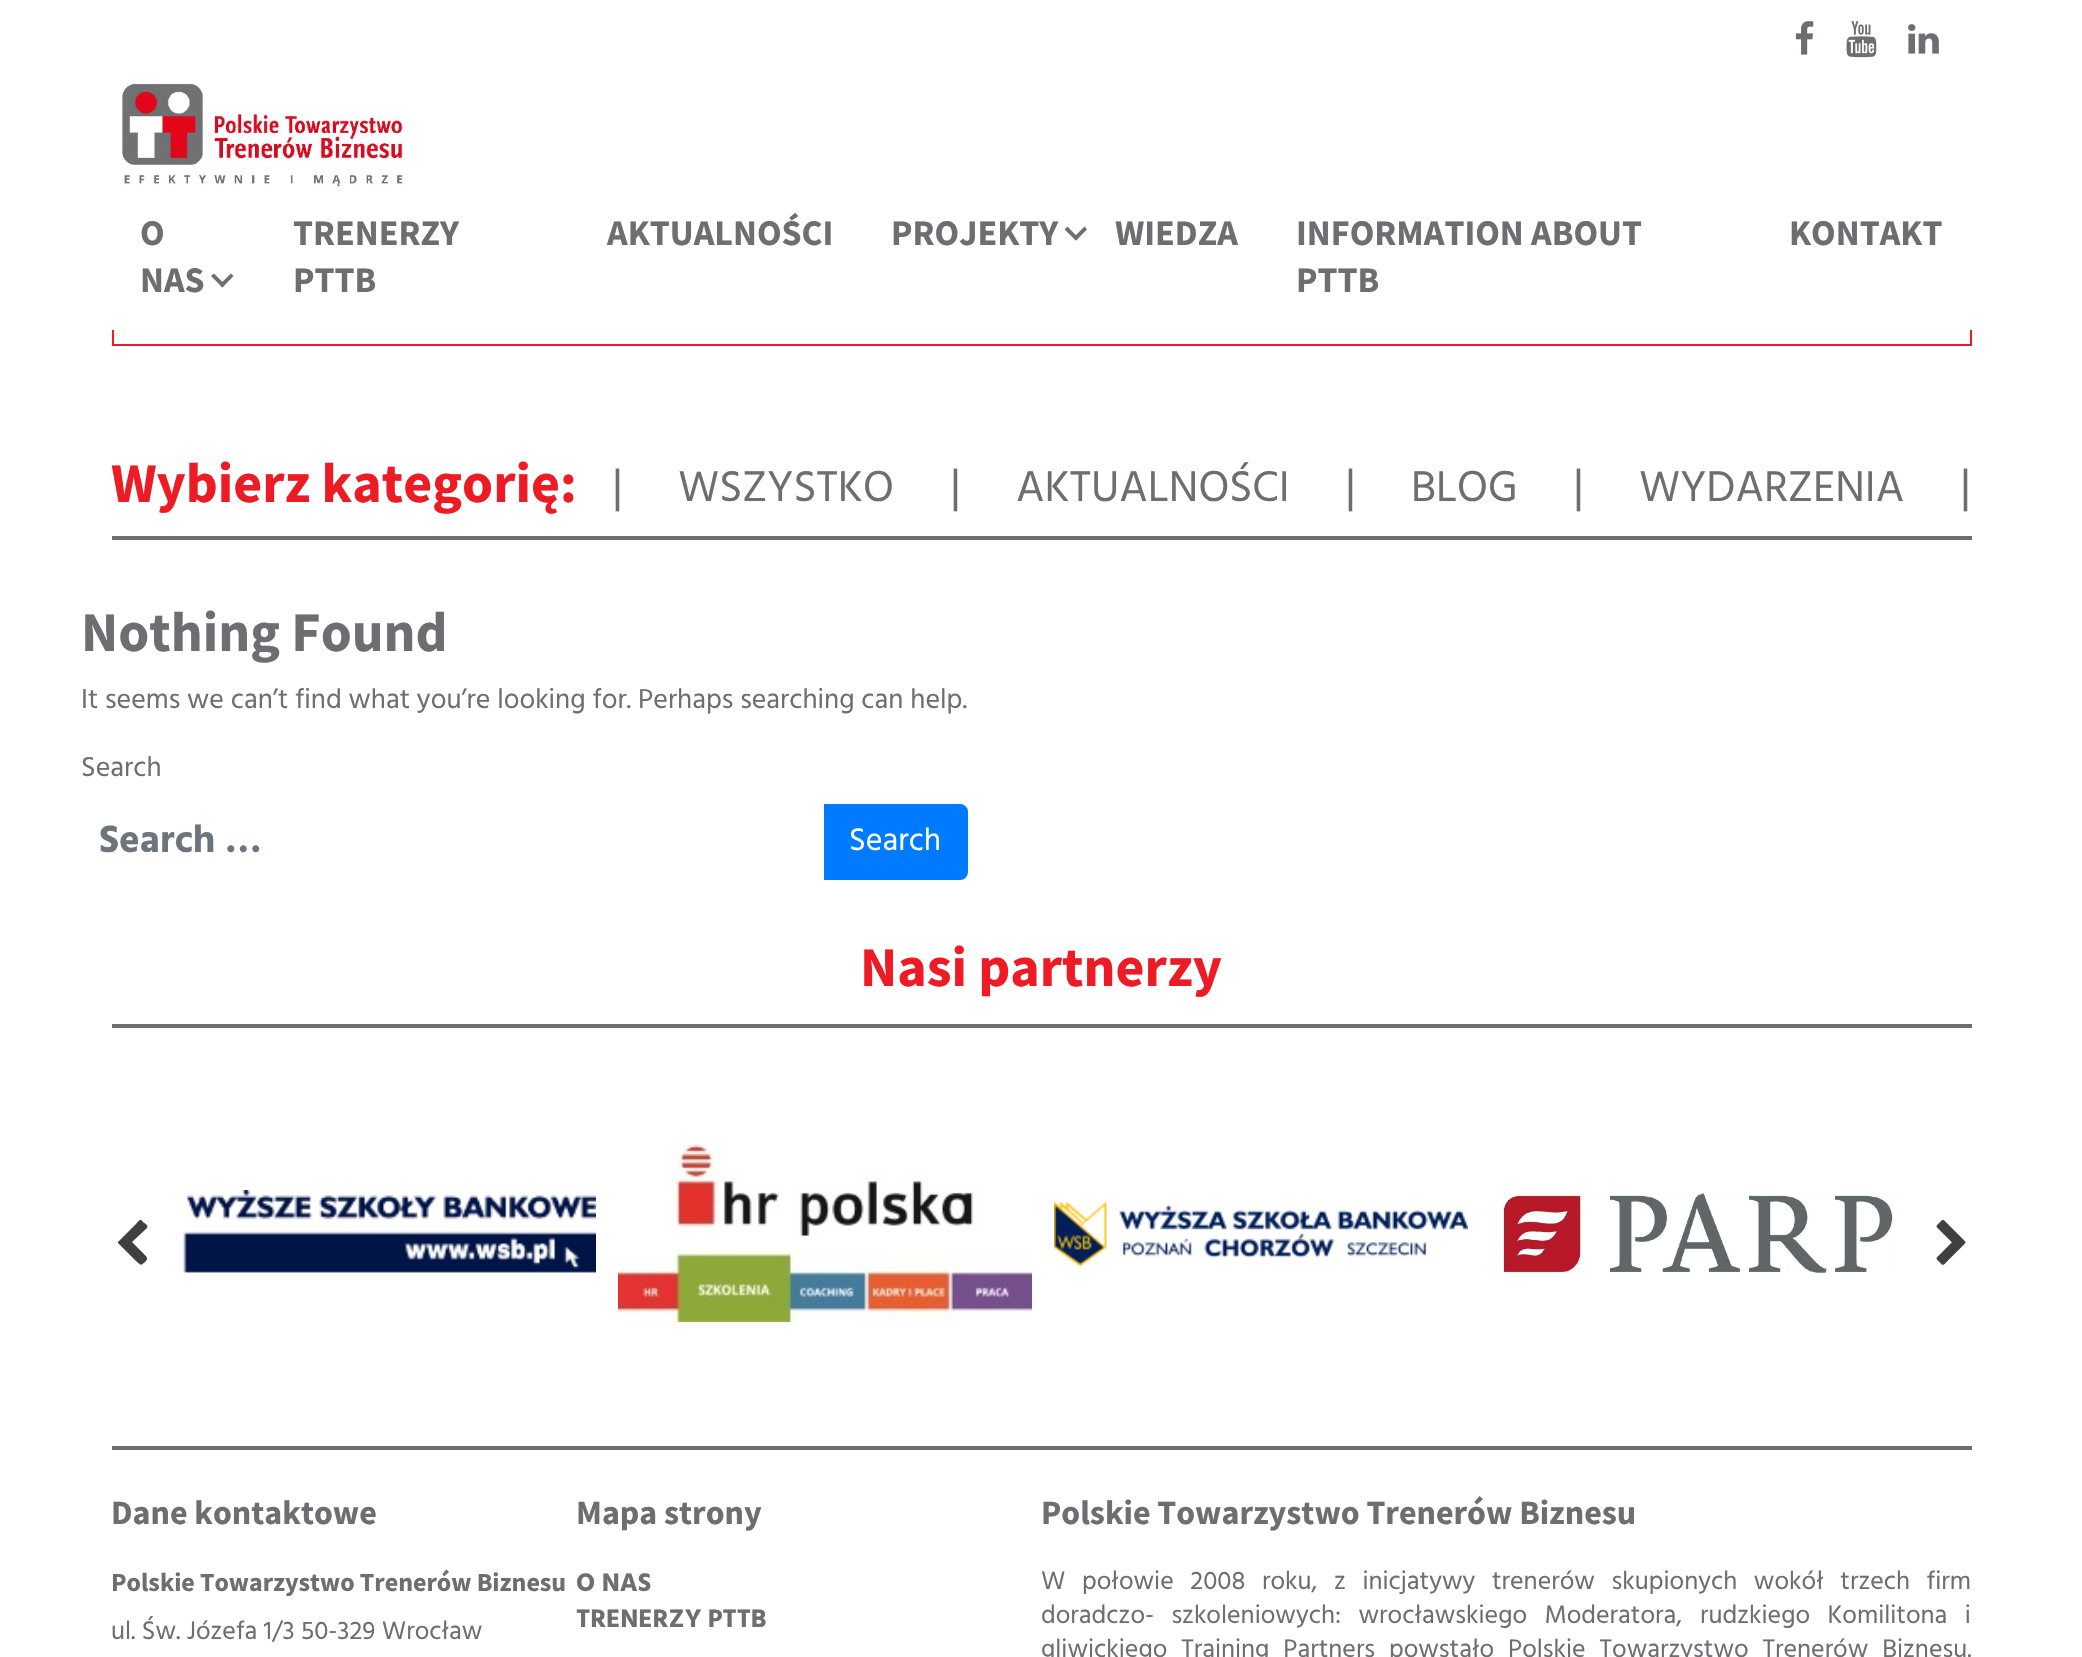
void draw(SkCanvas* canvas) {
  SkPaint paint;
  paint.setAntiAlias(true);
  auto face = [&](const char* family, int weight, float size, bool italic = false) {
    SkFontStyle style(weight, SkFontStyle::kNormal_Width,
      italic ? SkFontStyle::kItalic_Slant : SkFontStyle::kUpright_Slant);
    SkFont result(fontMgr->matchFamilyStyle(family, style), size);
    result.setSubpixel(true);
    return result;
  };
  auto writeSpaced = [&](const char* s, float x, float y, const SkFont& font, const SkPaint& ink, float letter, float word) {
    std::vector<SkGlyphID> glyphs(font.countText(s, strlen(s), SkTextEncoding::kUTF8));
    std::vector<float> xs(glyphs.size());
    font.textToGlyphs(s, strlen(s), SkTextEncoding::kUTF8, glyphs);
    font.getXPos(glyphs, xs, x);
    float extra = 0;
    for (size_t i = 0; i < glyphs.size(); i++) {
      xs[i] += extra;
      extra += letter + word * (glyphs[i] == font.unicharToGlyph(' '));
    }
    canvas->drawTextBlob(SkTextBlob::MakeFromPosHGlyphs(glyphs, xs, y, font), 0, 0, ink);
  };
  auto paste = [&](const char* path, float x, float y, float w, float h) {
    auto image = SkImages::DeferredFromEncodedData(SkData::MakeFromFileName(path));
    canvas->drawImageRect(image, SkRect::MakeXYWH(x, y, w, h), SkSamplingOptions());
  };
  auto shape = [&](const char* data, bool evenOdd = false) {
    SkPath result = *SkParsePath::FromSVGString(data);
    if (evenOdd) result.setFillType(SkPathFillType::kEvenOdd);
    return result;
  };
  canvas->clear(0xffffffff);
  paint.setStroke(true);
  paint.setStrokeWidth(2);
  paint.setColor(0xffed1c24);
  canvas->drawRect(SkRect::MakeXYWH(113, 251, 1858, 94), paint);
  paint.setStroke(false);
  paint.setColor(0xffffffff);
  canvas->drawRect(SkRect::MakeXYWH(112, 250, 1860, 80), paint);
  paste("img/1.png", 1795, 21, 19, 34);
  paste("img/2.png", 1846, 21, 31, 37);
  paste("img/3.png", 1908, 24, 31, 30);
  paste("img/4.png", 122, 83, 282, 104);
  paint.setColor(0xff6d6e71);
  canvas->drawPath(shape("M222.5 287.5L211 276L214 273.5L225 284.5Z"), paint);
  canvas->drawPath(shape("M222.5 287.5L219.5 284.5L231 273.5L233.5 276Z"), paint);
  canvas->drawPath(shape("M1076 240.5L1064.5 229.5L1067.5 226.5L1078.5 238Z"), paint);
  canvas->drawPath(shape("M1076 240.5L1073 238L1084.5 226.5L1087 229.5Z"), paint);
  canvas->drawRect(SkRect::MakeXYWH(112, 536, 1860, 4), paint);
  paint.setColor(0xff007bff);
  canvas->drawPath(shape("M825 805H960C964 805 967 808 967 812V872C967 876 964 879 960 879H825Z"), paint);
  paint.setStroke(true);
  canvas->drawPath(shape("M825 805H960C964 805 967 808 967 812V872C967 876 964 879 960 879H825Z"), paint);
  paint.setStroke(false);
  paint.setColor(0xff6d6e71);
  canvas->drawRect(SkRect::MakeXYWH(112, 1024, 1860, 4), paint);
  paint.setColor(0xff404040);
  canvas->drawPath(shape("M147 1228C149 1225 144 1223 143 1222C140 1218 139 1221 136 1224L118 1242V1243L136 1261C142 1266 140 1266 146 1261C149 1257 145 1256 142 1252L132 1242Z"), paint);
  paste("img/5.png", 183, 1190, 413, 83);
  paste("img/6.png", 618, 1144, 414, 178);
  paste("img/7.png", 1054, 1202, 414, 64);
  paste("img/8.png", 1503, 1193, 390, 82);
  paste("img/9.png", 1936, 1219, 30, 46);
  paint.setColor(0xff6d6e71);
  canvas->drawRect(SkRect::MakeXYWH(112, 1446, 1860, 4), paint);
  auto f0 = face("Source Sans Pro", 700, 36);
  {
    const struct { const char* s; float x, y; } items[] = {
      {"O", 140, 245},
      {"NAS", 140, 292},
      {"TRENERZY", 293, 245},
      {"PTTB", 293, 292},
      {"AKTUALNOŚCI", 607, 245},
      {"PROJEKTY", 891, 245},
      {"WIEDZA", 1115, 245},
      {"INFORMATION ABOUT", 1296, 245},
      {"PTTB", 1296, 292},
      {"KONTAKT", 1789, 245},
    };
    for (auto [s, x, y] : items) {
      canvas->drawString(s, x, y, f0, paint);
    }
  }
  auto f1 = face("Source Sans Pro", 700, 56);
  paint.setColor(0xffed1c24);
  canvas->drawString("Wybierz kategorię:", 111, 502, f1, paint);
  auto f2 = face("Hind", 400, 48);
  paint.setColor(0xff6d6e71);
  canvas->drawString("|", 612, 502, f2, paint);
  auto f3 = face("Hind", 400, 44);
  canvas->drawString("WSZYSTKO", 678, 501, f3, paint);
  canvas->drawString("|", 950, 502, f2, paint);
  canvas->drawString("AKTUALNOŚCI", 1016, 501, f3, paint);
  canvas->drawString("|", 1345, 502, f2, paint);
  canvas->drawString("BLOG", 1411, 501, f3, paint);
  canvas->drawString("|", 1573, 502, f2, paint);
  canvas->drawString("WYDARZENIA", 1639, 501, f3, paint);
  canvas->drawString("|", 1960, 502, f2, paint);
  canvas->drawString("Nothing Found", 81, 651, f1, paint);
  auto f4 = face("Hind", 400, 28);
  canvas->drawString("It seems we can’t find what you’re looking for. Perhaps searching can help.", 81, 708, f4, paint);
  canvas->drawString("Search", 81, 776, f4, paint);
  auto f5 = face("Hind", 700, 39);
  paint.setColor(0xff6c757d);
  canvas->drawString("Search …", 99, 852, f5, paint);
  auto f6 = face("Hind", 400, 32);
  paint.setColor(0xffffffff);
  canvas->drawString("Search", 849, 850, f6, paint);
  paint.setColor(0xffed1c24);
  canvas->drawString("Nasi partnerzy", 860, 986, f1, paint);
  auto f7 = face("Source Sans Pro", 700, 34);
  paint.setColor(0xff6d6e71);
  canvas->drawString("Dane kontaktowe", 111, 1524, f7, paint);
  auto f8 = face("Source Sans Pro", 700, 26);
  canvas->drawString("Polskie Towarzystwo Trenerów Biznesu", 111, 1591, f8, paint);
  auto f9 = face("Hind", 400, 26);
  canvas->drawString("ul. Św. Józefa 1/3 50-329 Wrocław", 111, 1639, f9, paint);
  canvas->drawString("Mapa strony", 576, 1524, f7, paint);
  auto f10 = face("Hind", 700, 26);
  canvas->drawString("O NAS", 576, 1591, f10, paint);
  canvas->drawString("TRENERZY PTTB", 576, 1627, f10, paint);
  canvas->drawString("Polskie Towarzystwo Trenerów Biznesu", 1041, 1524, f7, paint);
  writeSpaced("W połowie 2008 roku, z inicjatywy trenerów skupionych wokół trzech firm", 1041, 1589, f9, paint, 0, 10.25f);
  writeSpaced("doradczo- szkoleniowych: wrocławskiego Moderatora,", 1041, 1623, f9, paint, 0, 11);
  writeSpaced("rudzkiego Komilitona i", 1700, 1623, f9, paint, 0, 11);
  writeSpaced("gliwickiego Training Partners powstało Polskie Towarzystwo Trenerów Biznesu.", 1041, 1657, f9, paint, 0, 7.5f);
}
